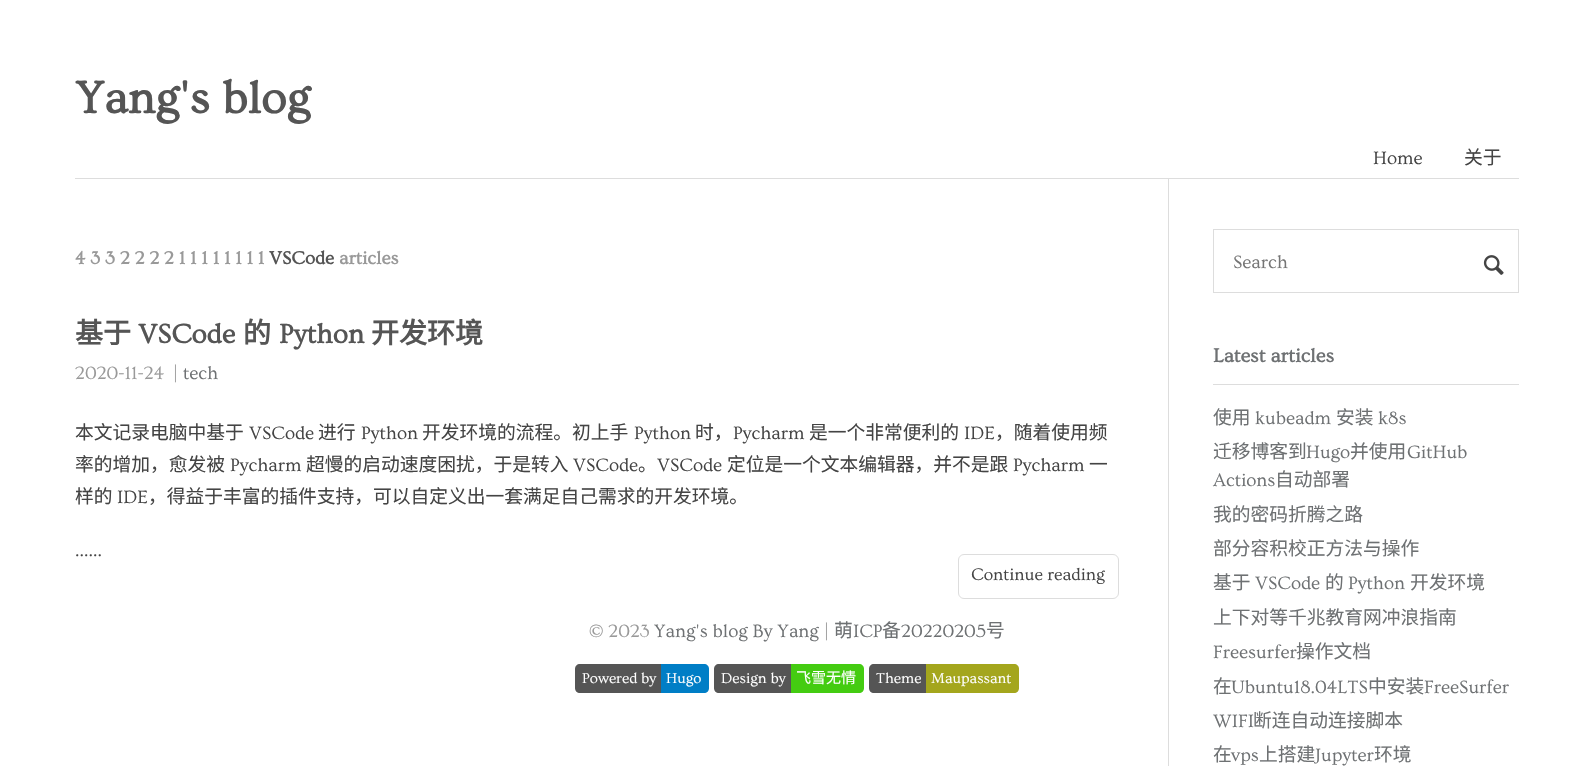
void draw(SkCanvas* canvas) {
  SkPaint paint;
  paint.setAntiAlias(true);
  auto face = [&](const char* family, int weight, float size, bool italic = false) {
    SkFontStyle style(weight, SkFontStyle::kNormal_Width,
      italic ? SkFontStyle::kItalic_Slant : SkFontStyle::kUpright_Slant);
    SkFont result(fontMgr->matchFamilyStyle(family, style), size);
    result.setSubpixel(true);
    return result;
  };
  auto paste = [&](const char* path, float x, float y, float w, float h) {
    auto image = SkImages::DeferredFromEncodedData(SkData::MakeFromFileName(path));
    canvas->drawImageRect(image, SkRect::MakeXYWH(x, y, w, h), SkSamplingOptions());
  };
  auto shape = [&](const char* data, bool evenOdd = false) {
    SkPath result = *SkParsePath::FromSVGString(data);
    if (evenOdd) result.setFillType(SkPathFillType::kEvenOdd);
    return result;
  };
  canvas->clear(0xffffffff);
  paint.setColor(0xffdddddd);
  canvas->drawRect(SkRect::MakeXYWH(75, 178, 1444, 1), paint);
  paint.setStroke(true);
  paint.setStrokeWidth(1);
  canvas->drawRoundRect(SkRect::MakeXYWH(958.5f, 554.5f, 160, 44), 5.5f, 5.5f, paint);
  paint.setStroke(false);
  paint.setColor(0xff555555);
  canvas->drawPath(shape("M580 664H661V693H580C577 693 575 691 575 688V669C575 666 577 664 580 664Z"), paint);
  paint.setColor(0xff007ec6);
  canvas->drawPath(shape("M661 664H704C707 664 709 666 709 669V688C709 691 707 693 704 693H661Z"), paint);
  paint.setColor(0xff555555);
  canvas->drawPath(shape("M719 664H791V693H719C716 693 714 691 714 688V669C714 666 716 664 719 664Z"), paint);
  paint.setColor(0xff44cc11);
  canvas->drawPath(shape("M791 664H859C862 664 864 666 864 669V688C864 691 862 693 859 693H791Z"), paint);
  paint.setColor(0xff555555);
  canvas->drawPath(shape("M874 664H926V693H874C871 693 869 691 869 688V669C869 666 871 664 874 664Z"), paint);
  paint.setColor(0xffa4a61d);
  canvas->drawPath(shape("M926 664H1014C1017 664 1019 666 1019 669V688C1019 691 1017 693 1014 693H926Z"), paint);
  paint.setColor(0xffdddddd);
  canvas->drawRect(SkRect::MakeXYWH(1168, 179, 1, 587), paint);
  paint.setStroke(true);
  canvas->drawRect(SkRect::MakeXYWH(1213.5f, 229.5f, 305, 63), paint);
  paste("img/1.png", 1483, 255, 21, 20);
  paint.setStroke(false);
  canvas->drawRect(SkRect::MakeXYWH(1213, 384, 306, 1), paint);
  auto f0 = face("Ovo", 700, 47);
  paint.setColor(0xff555555);
  canvas->drawString("Yang's blog", 75, 113, f0, paint);
  auto f1 = face("Ovo", 400, 18.75f);
  paint.setColor(0xff444444);
  canvas->drawString("Home", 1373, 164, f1, paint);
  auto f2 = face("Noto Sans CJK SC", 400, 18.75f);
  canvas->drawString("关于", 1464, 164, f2, paint);
  auto f3 = face("Ovo", 700, 18.75f);
  paint.setColor(0xff999999);
  canvas->drawString("4 3 3 2 2 2 2 1 1 1 1 1 1 1 1", 75, 264, f3, paint);
  paint.setColor(0xff555555);
  canvas->drawString("VSCode", 269, 264, f3, paint);
  paint.setColor(0xff999999);
  canvas->drawString("articles", 339, 264, f3, paint);
  auto f4 = face("Noto Sans CJK SC", 700, 28);
  paint.setColor(0xff555555);
  canvas->drawString("基于", 75, 343, f4, paint);
  auto f5 = face("Ovo", 700, 28);
  canvas->drawString("VSCode", 138, 343, f5, paint);
  canvas->drawString("的", 243, 343, f4, paint);
  canvas->drawString("Python", 279, 343, f5, paint);
  canvas->drawString("开发环境", 371, 343, f4, paint);
  paint.setColor(0xff999999);
  canvas->drawString("2020-11-24", 75, 379, f1, paint);
  canvas->drawString("|", 173, 379, f1, paint);
  paint.setColor(0xff6e7173);
  canvas->drawString("tech", 183, 379, f1, paint);
  paint.setColor(0xff444444);
  canvas->drawString("本文记录电脑中基于", 75, 439, f2, paint);
  canvas->drawString("VSCode", 249, 439, f1, paint);
  canvas->drawString("进行", 318, 439, f2, paint);
  canvas->drawString("Python", 361, 439, f1, paint);
  canvas->drawString("开发环境的流程。初上手", 422, 439, f2, paint);
  canvas->drawString("Python", 634, 439, f1, paint);
  canvas->drawString("时，", 695, 439, f2, paint);
  canvas->drawString("Pycharm", 733, 439, f1, paint);
  canvas->drawString("是一个非常便利的", 809, 439, f2, paint);
  canvas->drawString("IDE", 964, 439, f1, paint);
  canvas->drawString("，随着使用频", 995, 439, f2, paint);
  canvas->drawString("率的增加，愈发被", 75, 471, f2, paint);
  canvas->drawString("Pycharm", 230, 471, f1, paint);
  canvas->drawString("超慢的启动速度困扰，于是转入", 306, 471, f2, paint);
  canvas->drawString("VSCode", 573, 471, f1, paint);
  canvas->drawString("VSCode", 657, 471, f1, paint);
  canvas->drawString("定位是一个文本编辑器，并不是跟", 727, 471, f2, paint);
  canvas->drawString("Pycharm", 1013, 471, f1, paint);
  {
    const struct { const char* s; float x, y; } items[] = {
      {"一", 1089, 471},
      {"。", 638, 471},
      {"样的", 75, 503},
    };
    for (auto [s, x, y] : items) {
      canvas->drawString(s, x, y, f2, paint);
    }
  }
  canvas->drawString("IDE", 117, 503, f1, paint);
  canvas->drawString("，得益于丰富的插件支持，可以自定义出一套满足自己需求的开发环境。", 148, 503, f2, paint);
  canvas->drawString("……", 75, 556, f1, paint);
  auto f6 = face("Ovo", 400, 17.5f);
  canvas->drawString("Continue reading", 971, 580, f6, paint);
  paint.setColor(0xff999999);
  canvas->drawString("© 2023", 589, 637, f1, paint);
  paint.setColor(0xff6e7173);
  canvas->drawString("Yang's blog By Yang", 654, 637, f1, paint);
  paint.setColor(0xff999999);
  canvas->drawString("|", 824, 637, f1, paint);
  paint.setColor(0xff6e7173);
  canvas->drawString("萌", 834, 637, f2, paint);
  canvas->drawString("ICP", 853, 637, f1, paint);
  canvas->drawString("备", 882, 637, f2, paint);
  canvas->drawString("20220205", 901, 637, f1, paint);
  canvas->drawString("号", 986, 637, f2, paint);
  auto f7 = face("Ovo", 400, 15);
  paint.setColor(0xffffffff);
  {
    const struct { const char* s; float x, y; } items[] = {
      {"Powered by", 582, 683},
      {"Hugo", 666, 683},
      {"Design by", 721, 683},
    };
    for (auto [s, x, y] : items) {
      canvas->drawString(s, x, y, f7, paint);
    }
  }
  auto f8 = face("Noto Sans CJK SC", 400, 15);
  canvas->drawString("飞雪无情", 796, 683, f8, paint);
  canvas->drawString("Theme", 876, 683, f7, paint);
  canvas->drawString("Maupassant", 931, 683, f7, paint);
  paint.setColor(0xff757575);
  canvas->drawString("Search", 1233, 268, f1, paint);
  auto f9 = face("Ovo", 700, 20);
  paint.setColor(0xff6e7173);
  canvas->drawString("Latest articles", 1213, 362, f9, paint);
  canvas->drawString("使用", 1213, 424, f2, paint);
  canvas->drawString("kubeadm", 1255, 424, f1, paint);
  canvas->drawString("安装", 1336, 424, f2, paint);
  canvas->drawString("k8s", 1378, 424, f1, paint);
  canvas->drawString("迁移博客到", 1213, 458, f2, paint);
  canvas->drawString("Hugo", 1306, 458, f1, paint);
  canvas->drawString("并使用", 1350, 458, f2, paint);
  canvas->drawString("GitHub", 1407, 458, f1, paint);
  canvas->drawString("Actions", 1213, 486, f1, paint);
  {
    const struct { const char* s; float x, y; } items[] = {
      {"自动部署", 1275, 486},
      {"我的密码折腾之路", 1213, 521},
      {"部分容积校正方法与操作", 1213, 555},
      {"基于", 1213, 589},
    };
    for (auto [s, x, y] : items) {
      canvas->drawString(s, x, y, f2, paint);
    }
  }
  canvas->drawString("VSCode", 1255, 589, f1, paint);
  canvas->drawString("的", 1325, 589, f2, paint);
  canvas->drawString("Python", 1348, 589, f1, paint);
  canvas->drawString("开发环境", 1410, 589, f2, paint);
  canvas->drawString("上下对等千兆教育网冲浪指南", 1213, 624, f2, paint);
  canvas->drawString("Freesurfer", 1213, 658, f1, paint);
  canvas->drawString("操作文档", 1296, 658, f2, paint);
  canvas->drawString("在", 1213, 693, f2, paint);
  canvas->drawString("Ubuntu18.04LTS", 1231, 693, f1, paint);
  canvas->drawString("中安装", 1368, 693, f2, paint);
  canvas->drawString("FreeSurfer", 1424, 693, f1, paint);
  canvas->drawString("WIFI", 1213, 727, f1, paint);
  canvas->drawString("断连自动连接脚本", 1253, 727, f2, paint);
  canvas->drawString("在", 1213, 761, f2, paint);
  canvas->drawString("vps", 1231, 761, f1, paint);
  canvas->drawString("上搭建", 1259, 761, f2, paint);
  canvas->drawString("Jupyter", 1315, 761, f1, paint);
  canvas->drawString("环境", 1374, 761, f2, paint);
}
